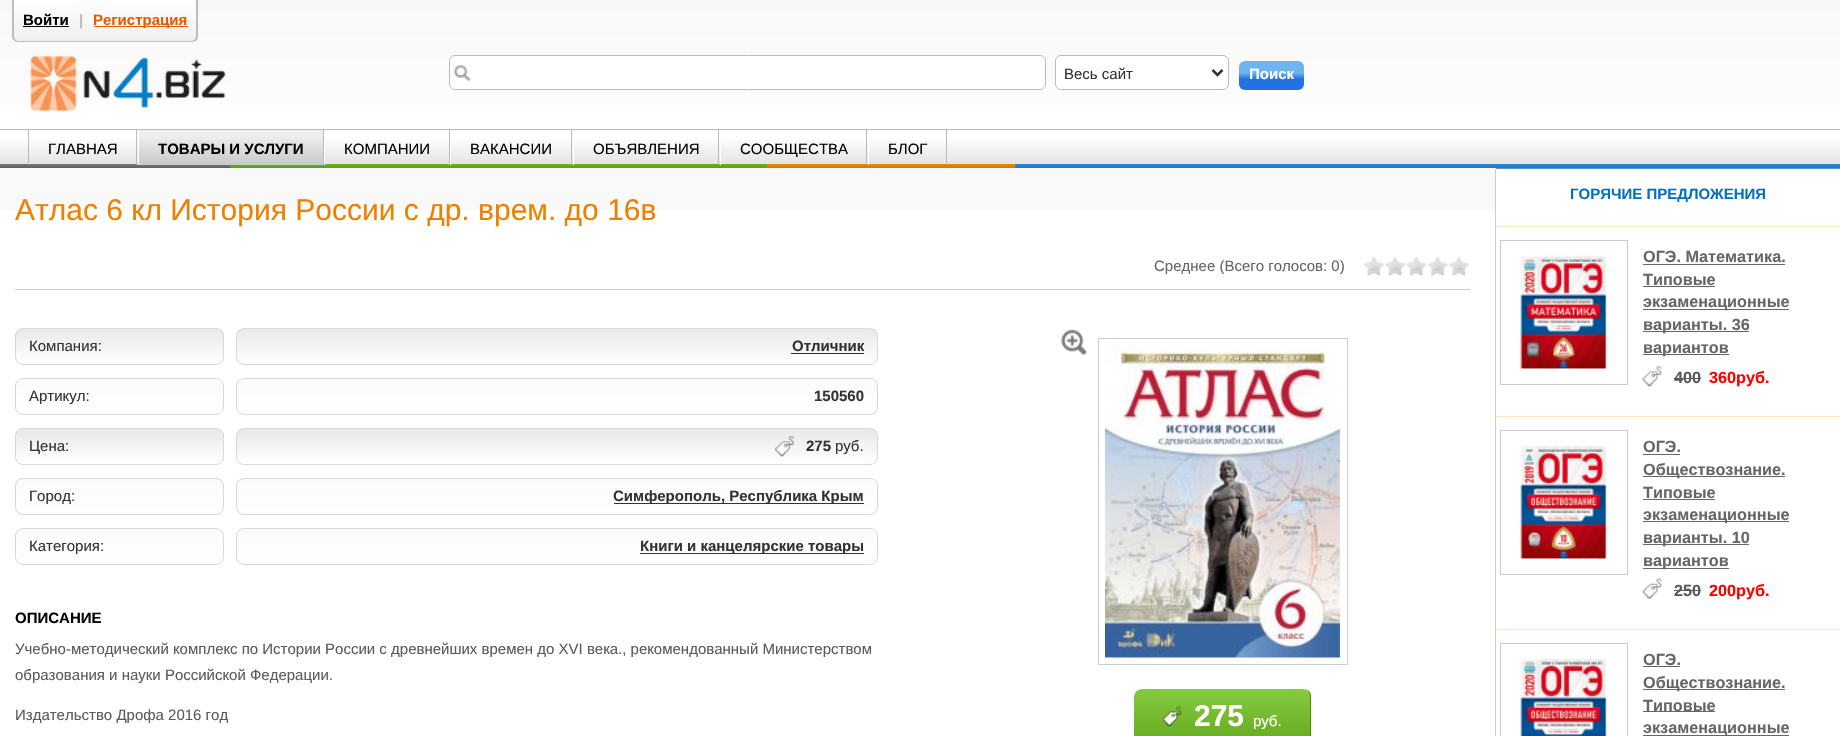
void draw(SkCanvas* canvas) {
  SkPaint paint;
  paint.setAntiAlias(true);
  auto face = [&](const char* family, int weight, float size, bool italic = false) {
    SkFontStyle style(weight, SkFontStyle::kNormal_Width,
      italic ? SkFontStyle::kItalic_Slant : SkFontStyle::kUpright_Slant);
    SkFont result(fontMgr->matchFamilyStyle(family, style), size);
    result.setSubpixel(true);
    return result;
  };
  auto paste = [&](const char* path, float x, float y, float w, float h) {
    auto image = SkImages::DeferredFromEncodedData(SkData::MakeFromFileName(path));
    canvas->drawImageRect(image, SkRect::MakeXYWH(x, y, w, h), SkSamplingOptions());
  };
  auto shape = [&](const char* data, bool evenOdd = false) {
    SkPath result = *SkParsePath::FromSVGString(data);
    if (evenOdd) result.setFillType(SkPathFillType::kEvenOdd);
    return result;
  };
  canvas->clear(0xffffffff);
  paste("img/1.png", 0, 164, 1840, 5);
  {
    const SkColor colors[] = {0xfff9f8f8, 0xffffffff};
    const float stops[] = {0, 1};
    const SkPoint ends[] = {{920, 0}, {920, 164}};
    paint.setShader(SkGradientShader::MakeLinear(ends, colors, stops, 2, SkTileMode::kClamp));
    paint.setAlpha(255);
  }
  canvas->drawRect(SkRect::MakeXYWH(0, 0, 1840, 105), paint);
  canvas->save();
  canvas->clipPath(shape("M13 0H198V37C198 40.5 195.5 43 192 43H19C15.5 43 13 40.5 13 37Z"), true);
  {
    const SkColor colors[] = {0xffffffff, 0xffefefef};
    const float stops[] = {0, 1};
    const SkPoint ends[] = {{105, 0}, {105, 41}};
    paint.setShader(SkGradientShader::MakeLinear(ends, colors, stops, 2, SkTileMode::kClamp));
    paint.setAlpha(255);
  }
  canvas->drawRect(SkRect::MakeXYWH(13, 0, 185, 41), paint);
  {
    const SkColor colors[] = {0xffffffff, 0xffefefef};
    const float stops[] = {0, 1};
    const SkPoint ends[] = {{105, 41}, {105, 83}};
    paint.setShader(SkGradientShader::MakeLinear(ends, colors, stops, 2, SkTileMode::kClamp));
    paint.setAlpha(255);
  }
  canvas->drawRect(SkRect::MakeXYWH(13, 41, 185, 2), paint);
  canvas->restore();
  paint.setShader(nullptr);
  paint.setColor(0xffbbbbbb);
  canvas->drawPath(shape("M12 0H198V36C198 40 195 42 191 42H19C15 42 12 40 12 36ZM14 0H196V36C196 39 194 41 191 41H19C16 41 14 39 14 36Z", true), paint);
  paint.setColor(0xff000000);
  canvas->drawRect(SkRect::MakeXYWH(23, 26, 46, 1), paint);
  paint.setColor(0xffe55c00);
  canvas->drawRect(SkRect::MakeXYWH(94, 26, 94, 1), paint);
  paste("img/2.png", 25, 50, 201, 63);
  {
    const SkColor colors[] = {0xffffffff, 0xffe4e4e4};
    const float stops[] = {0.2f, 1};
    const SkPoint ends[] = {{920, 130}, {920, 164}};
    paint.setShader(SkGradientShader::MakeLinear(ends, colors, stops, 2, SkTileMode::kClamp));
    paint.setAlpha(255);
  }
  canvas->drawRect(SkRect::MakeXYWH(0, 139, 1840, 25), paint);
  paint.setShader(nullptr);
  {
    const struct { float x, y, w, h; SkColor color; } items[] = {
      {0, 129, 1840, 1, 0xffbbbbbb},
      {136, 130, 1, 35, 0xffbbbbbb},
      {28, 130, 1, 35, 0xffbbbbbb},
    };
    for (auto [x, y, w, h, color] : items) {
      paint.setColor(color);
      canvas->drawRect(SkRect::MakeXYWH(x, y, w, h), paint);
    }
  }
  {
    const SkColor colors[] = {0xffededed, 0xffc7c8c7};
    const float stops[] = {0.2f, 1};
    const SkPoint ends[] = {{231, 130}, {231, 165}};
    paint.setShader(SkGradientShader::MakeLinear(ends, colors, stops, 2, SkTileMode::kClamp));
    paint.setAlpha(255);
  }
  canvas->drawRect(SkRect::MakeXYWH(139, 130, 184, 35), paint);
  paint.setShader(nullptr);
  {
    const struct { float x, y, w, h; SkColor color; } items[] = {
      {323, 130, 1, 35, 0xffbbbbbb},
      {138, 139, 1, 26, 0xffffffff},
      {449, 130, 1, 35, 0xffbbbbbb},
      {324, 139, 1, 26, 0xffffffff},
      {571, 130, 1, 35, 0xffbbbbbb},
      {450, 139, 1, 26, 0xffffffff},
      {718, 130, 1, 35, 0xffbbbbbb},
      {573, 139, 1, 26, 0xffffffff},
      {866, 130, 1, 35, 0xffbbbbbb},
      {720, 139, 1, 26, 0xffffffff},
      {946, 130, 1, 35, 0xffbbbbbb},
      {868, 139, 1, 26, 0xffffffff},
    };
    for (auto [x, y, w, h, color] : items) {
      paint.setColor(color);
      canvas->drawRect(SkRect::MakeXYWH(x, y, w, h), paint);
    }
  }
  canvas->drawRoundRect(SkRect::MakeXYWH(449, 55, 597, 35), 6, 6, paint);
  paste("img/3.png", 453, 65, 19, 17);
  paint.setStroke(true);
  paint.setStrokeWidth(1);
  paint.setColor(0xffbbbbbb);
  canvas->drawRoundRect(SkRect::MakeXYWH(449.5f, 55.5f, 596, 34), 5.5f, 5.5f, paint);
  paint.setStroke(false);
  paint.setColor(0xffffffff);
  canvas->drawRoundRect(SkRect::MakeXYWH(1055.5f, 55.5f, 173, 34), 5.5f, 5.5f, paint);
  paint.setStroke(true);
  paint.setColor(0xffbbbbbb);
  canvas->drawRoundRect(SkRect::MakeXYWH(1055.5f, 55.5f, 173, 34), 5.5f, 5.5f, paint);
  paint.setStrokeWidth(2.5f);
  paint.setColor(0xff333333);
  canvas->drawPath(shape("M1212.5 70L1217.5 75L1222.5 70"), paint);
  paint.setStroke(false);
  {
    const SkColor colors[] = {0xff6eb4f1, 0xff2270e2};
    const float stops[] = {0.4f, 0.62f};
    const SkPoint ends[] = {{1271, 61}, {1271, 90}};
    paint.setShader(SkGradientShader::MakeLinear(ends, colors, stops, 2, SkTileMode::kClamp));
    paint.setAlpha(255);
  }
  canvas->drawRoundRect(SkRect::MakeXYWH(1239, 61, 65, 29), 6, 6, paint);
  paint.setShader(nullptr);
  {
    const struct { float x, y, w, h; SkColor color; } items[] = {
      {0, 168, 1496, 42, 0xfff9f9f9},
      {1495, 169, 1, 567, 0xffcccccc},
      {15, 289, 1455, 1, 0xffcccccc},
    };
    for (auto [x, y, w, h, color] : items) {
      paint.setColor(color);
      canvas->drawRect(SkRect::MakeXYWH(x, y, w, h), paint);
    }
  }
  paste("img/4.png", 1363, 256, 21, 20);
  paste("img/5.png", 1385, 256, 20, 20);
  paste("img/6.png", 1406, 256, 21, 20);
  paste("img/7.png", 1427, 256, 21, 20);
  paste("img/8.png", 1448, 256, 21, 20);
  canvas->save();
  canvas->clipPath(shape("M23 328H216C220.5 328 224 331.5 224 336V357C224 361.5 220.5 365 216 365H23C18.5 365 15 361.5 15 357V336C15 331.5 18.5 328 23 328Z"), true);
  {
    const SkColor colors[] = {0xffe9e9e9, 0xffffffff};
    const float stops[] = {0, 1};
    const SkPoint ends[] = {{119, 329}, {119, 364}};
    paint.setShader(SkGradientShader::MakeLinear(ends, colors, stops, 2, SkTileMode::kClamp));
    paint.setAlpha(255);
  }
  canvas->drawRect(SkRect::MakeXYWH(15, 329, 209, 35), paint);
  canvas->restore();
  paint.setStroke(true);
  paint.setStrokeWidth(1);
  paint.setShader(nullptr);
  paint.setColor(0xffd8d8d8);
  canvas->drawRoundRect(SkRect::MakeXYWH(15.5f, 328.5f, 208, 36), 7.5f, 7.5f, paint);
  canvas->save();
  canvas->clipPath(shape("M244 328H870C874.5 328 878 331.5 878 336V357C878 361.5 874.5 365 870 365H244C239.5 365 236 361.5 236 357V336C236 331.5 239.5 328 244 328Z"), true);
  paint.setStroke(false);
  {
    const SkColor colors[] = {0xffe9e9e9, 0xffffffff};
    const float stops[] = {0, 1};
    const SkPoint ends[] = {{557, 329}, {557, 364}};
    paint.setShader(SkGradientShader::MakeLinear(ends, colors, stops, 2, SkTileMode::kClamp));
    paint.setAlpha(255);
  }
  canvas->drawRect(SkRect::MakeXYWH(236, 329, 642, 35), paint);
  canvas->restore();
  paint.setStroke(true);
  paint.setShader(nullptr);
  paint.setColor(0xffd8d8d8);
  canvas->drawRoundRect(SkRect::MakeXYWH(236.5f, 328.5f, 641, 36), 7.5f, 7.5f, paint);
  paint.setStroke(false);
  paint.setColor(0xff333333);
  canvas->drawRect(SkRect::MakeXYWH(791, 353, 73, 1), paint);
  canvas->save();
  canvas->clipPath(shape("M23 378H216C220.5 378 224 381.5 224 386V407C224 411.5 220.5 415 216 415H23C18.5 415 15 411.5 15 407V386C15 381.5 18.5 378 23 378Z"), true);
  {
    const SkColor colors[] = {0xfffbfbfb, 0xfffefefe};
    const float stops[] = {0, 1};
    const SkPoint ends[] = {{119, 379}, {119, 414}};
    paint.setShader(SkGradientShader::MakeLinear(ends, colors, stops, 2, SkTileMode::kClamp));
    paint.setAlpha(255);
  }
  canvas->drawRect(SkRect::MakeXYWH(15, 379, 209, 35), paint);
  canvas->restore();
  paint.setStroke(true);
  paint.setShader(nullptr);
  paint.setColor(0xffd8d8d8);
  canvas->drawRoundRect(SkRect::MakeXYWH(15.5f, 378.5f, 208, 36), 7.5f, 7.5f, paint);
  canvas->save();
  canvas->clipPath(shape("M244 378H870C874.5 378 878 381.5 878 386V407C878 411.5 874.5 415 870 415H244C239.5 415 236 411.5 236 407V386C236 381.5 239.5 378 244 378Z"), true);
  paint.setStroke(false);
  {
    const SkColor colors[] = {0xfffbfbfb, 0xfffefefe};
    const float stops[] = {0, 1};
    const SkPoint ends[] = {{557, 379}, {557, 414}};
    paint.setShader(SkGradientShader::MakeLinear(ends, colors, stops, 2, SkTileMode::kClamp));
    paint.setAlpha(255);
  }
  canvas->drawRect(SkRect::MakeXYWH(236, 379, 642, 35), paint);
  canvas->restore();
  paint.setStroke(true);
  paint.setShader(nullptr);
  paint.setColor(0xffd8d8d8);
  canvas->drawRoundRect(SkRect::MakeXYWH(236.5f, 378.5f, 641, 36), 7.5f, 7.5f, paint);
  canvas->save();
  canvas->clipPath(shape("M23 428H216C220.5 428 224 431.5 224 436V457C224 461.5 220.5 465 216 465H23C18.5 465 15 461.5 15 457V436C15 431.5 18.5 428 23 428Z"), true);
  paint.setStroke(false);
  {
    const SkColor colors[] = {0xffe9e9e9, 0xffffffff};
    const float stops[] = {0, 1};
    const SkPoint ends[] = {{119, 429}, {119, 464}};
    paint.setShader(SkGradientShader::MakeLinear(ends, colors, stops, 2, SkTileMode::kClamp));
    paint.setAlpha(255);
  }
  canvas->drawRect(SkRect::MakeXYWH(15, 429, 209, 35), paint);
  canvas->restore();
  paint.setStroke(true);
  paint.setShader(nullptr);
  paint.setColor(0xffd8d8d8);
  canvas->drawRoundRect(SkRect::MakeXYWH(15.5f, 428.5f, 208, 36), 7.5f, 7.5f, paint);
  canvas->save();
  canvas->clipPath(shape("M244 428H870C874.5 428 878 431.5 878 436V457C878 461.5 874.5 465 870 465H244C239.5 465 236 461.5 236 457V436C236 431.5 239.5 428 244 428Z"), true);
  paint.setStroke(false);
  {
    const SkColor colors[] = {0xffe9e9e9, 0xffffffff};
    const float stops[] = {0, 1};
    const SkPoint ends[] = {{557, 429}, {557, 464}};
    paint.setShader(SkGradientShader::MakeLinear(ends, colors, stops, 2, SkTileMode::kClamp));
    paint.setAlpha(255);
  }
  canvas->drawRect(SkRect::MakeXYWH(236, 429, 642, 35), paint);
  canvas->restore();
  paint.setStroke(true);
  paint.setShader(nullptr);
  paint.setColor(0xffd8d8d8);
  canvas->drawRoundRect(SkRect::MakeXYWH(236.5f, 428.5f, 641, 36), 7.5f, 7.5f, paint);
  paste("img/9.png", 775, 436, 19, 21);
  canvas->save();
  canvas->clipPath(shape("M23 478H216C220.5 478 224 481.5 224 486V507C224 511.5 220.5 515 216 515H23C18.5 515 15 511.5 15 507V486C15 481.5 18.5 478 23 478Z"), true);
  paint.setStroke(false);
  {
    const SkColor colors[] = {0xfffbfbfb, 0xfffefefe};
    const float stops[] = {0, 1};
    const SkPoint ends[] = {{119, 479}, {119, 514}};
    paint.setShader(SkGradientShader::MakeLinear(ends, colors, stops, 2, SkTileMode::kClamp));
    paint.setAlpha(255);
  }
  canvas->drawRect(SkRect::MakeXYWH(15, 479, 209, 35), paint);
  canvas->restore();
  paint.setStroke(true);
  paint.setShader(nullptr);
  paint.setColor(0xffd8d8d8);
  canvas->drawRoundRect(SkRect::MakeXYWH(15.5f, 478.5f, 208, 36), 7.5f, 7.5f, paint);
  canvas->save();
  canvas->clipPath(shape("M244 478H870C874.5 478 878 481.5 878 486V507C878 511.5 874.5 515 870 515H244C239.5 515 236 511.5 236 507V486C236 481.5 239.5 478 244 478Z"), true);
  paint.setStroke(false);
  {
    const SkColor colors[] = {0xfffbfbfb, 0xfffefefe};
    const float stops[] = {0, 1};
    const SkPoint ends[] = {{557, 479}, {557, 514}};
    paint.setShader(SkGradientShader::MakeLinear(ends, colors, stops, 2, SkTileMode::kClamp));
    paint.setAlpha(255);
  }
  canvas->drawRect(SkRect::MakeXYWH(236, 479, 642, 35), paint);
  canvas->restore();
  paint.setStroke(true);
  paint.setShader(nullptr);
  paint.setColor(0xffd8d8d8);
  canvas->drawRoundRect(SkRect::MakeXYWH(236.5f, 478.5f, 641, 36), 7.5f, 7.5f, paint);
  paint.setStroke(false);
  paint.setColor(0xff333333);
  canvas->drawRect(SkRect::MakeXYWH(614, 503, 250, 1), paint);
  canvas->save();
  canvas->clipPath(shape("M23 528H216C220.5 528 224 531.5 224 536V557C224 561.5 220.5 565 216 565H23C18.5 565 15 561.5 15 557V536C15 531.5 18.5 528 23 528Z"), true);
  {
    const SkColor colors[] = {0xfffbfbfb, 0xfffefefe};
    const float stops[] = {0, 1};
    const SkPoint ends[] = {{119, 529}, {119, 564}};
    paint.setShader(SkGradientShader::MakeLinear(ends, colors, stops, 2, SkTileMode::kClamp));
    paint.setAlpha(255);
  }
  canvas->drawRect(SkRect::MakeXYWH(15, 529, 209, 35), paint);
  canvas->restore();
  paint.setStroke(true);
  paint.setShader(nullptr);
  paint.setColor(0xffd8d8d8);
  canvas->drawRoundRect(SkRect::MakeXYWH(15.5f, 528.5f, 208, 36), 7.5f, 7.5f, paint);
  canvas->save();
  canvas->clipPath(shape("M244 528H870C874.5 528 878 531.5 878 536V557C878 561.5 874.5 565 870 565H244C239.5 565 236 561.5 236 557V536C236 531.5 239.5 528 244 528Z"), true);
  paint.setStroke(false);
  {
    const SkColor colors[] = {0xfffbfbfb, 0xfffefefe};
    const float stops[] = {0, 1};
    const SkPoint ends[] = {{557, 529}, {557, 564}};
    paint.setShader(SkGradientShader::MakeLinear(ends, colors, stops, 2, SkTileMode::kClamp));
    paint.setAlpha(255);
  }
  canvas->drawRect(SkRect::MakeXYWH(236, 529, 642, 35), paint);
  canvas->restore();
  paint.setStroke(true);
  paint.setShader(nullptr);
  paint.setColor(0xffd8d8d8);
  canvas->drawRoundRect(SkRect::MakeXYWH(236.5f, 528.5f, 641, 36), 7.5f, 7.5f, paint);
  paint.setStroke(false);
  paint.setColor(0xff333333);
  canvas->drawRect(SkRect::MakeXYWH(640, 553, 224, 1), paint);
  paste("img/10.png", 1061, 329, 26, 26);
  paint.setStroke(true);
  paint.setColor(0xffcccccc);
  canvas->drawRect(SkRect::MakeXYWH(1098.5f, 338.5f, 249, 326), paint);
  paste("img/11.png", 1105, 345, 235, 313);
  canvas->save();
  canvas->clipPath(shape("M1142 689H1303C1307.5 689 1311 692.5 1311 697V737C1311 741.5 1307.5 745 1303 745H1142C1137.5 745 1134 741.5 1134 737V697C1134 692.5 1137.5 689 1142 689Z"), true);
  paint.setStroke(false);
  {
    const SkColor colors[] = {0xff86ca40, 0xff65ab1e};
    const float stops[] = {0, 1};
    const SkPoint ends[] = {{1222, 689}, {1222, 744}};
    paint.setShader(SkGradientShader::MakeLinear(ends, colors, stops, 2, SkTileMode::kClamp));
    paint.setAlpha(255);
  }
  canvas->drawPath(shape("M1142 689H1303C1307.5 689 1311 692.5 1311 697V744H1134V697C1134 692.5 1137.5 689 1142 689Z"), paint);
  canvas->restore();
  paint.setShader(nullptr);
  paint.setColor(0xff4b880d);
  canvas->drawPath(shape("M1141 689H1304C1308 689 1311 692 1311 696V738C1311 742 1308 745 1304 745H1141C1137 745 1134 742 1134 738V696C1134 692 1137 689 1141 689ZM1141 689H1304C1307 689 1310 692 1310 696V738C1310 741 1307 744 1304 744H1141C1137 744 1134 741 1134 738V696C1134 692 1137 689 1141 689Z", true), paint);
  paste("img/12.png", 1162, 706, 20, 21);
  paint.setColor(0xffffe7be);
  canvas->drawRect(SkRect::MakeXYWH(1496, 226, 344, 1), paint);
  paint.setStroke(true);
  paint.setColor(0xffc8c8ca);
  canvas->drawRect(SkRect::MakeXYWH(1500.5f, 240.5f, 127, 144), paint);
  paste("img/13.png", 1520, 255, 87, 114);
  paint.setStroke(false);
  {
    const struct { float x, y, w, h; SkColor color; } items[] = {
      {1643, 264, 142, 1, 0xff666666},
      {1643, 286, 72, 1, 0xff666666},
      {1643, 309, 146, 1, 0xff666666},
      {1643, 331, 106, 1, 0xff666666},
      {1643, 354, 86, 1, 0xff666666},
    };
    for (auto [x, y, w, h, color] : items) {
      paint.setColor(color);
      canvas->drawRect(SkRect::MakeXYWH(x, y, w, h), paint);
    }
  }
  paste("img/14.png", 1642, 366, 20, 21);
  paint.setColor(0xff5a5a5a);
  canvas->drawRect(SkRect::MakeXYWH(1674, 378, 27, 1), paint);
  paint.setColor(0xffffe7be);
  canvas->drawRect(SkRect::MakeXYWH(1496, 416, 344, 1), paint);
  paint.setStroke(true);
  paint.setColor(0xffc8c8ca);
  canvas->drawRect(SkRect::MakeXYWH(1500.5f, 430.5f, 127, 144), paint);
  paste("img/15.png", 1520, 445, 87, 114);
  paint.setStroke(false);
  {
    const struct { float x, y, w, h; SkColor color; } items[] = {
      {1643, 454, 37, 1, 0xff666666},
      {1643, 476, 142, 1, 0xff666666},
      {1643, 499, 72, 1, 0xff666666},
      {1643, 521, 146, 1, 0xff666666},
      {1643, 544, 106, 1, 0xff666666},
      {1643, 568, 86, 1, 0xff666666},
    };
    for (auto [x, y, w, h, color] : items) {
      paint.setColor(color);
      canvas->drawRect(SkRect::MakeXYWH(x, y, w, h), paint);
    }
  }
  paste("img/16.png", 1642, 578, 20, 21);
  paint.setColor(0xff5a5a5a);
  canvas->drawRect(SkRect::MakeXYWH(1674, 590, 27, 1), paint);
  paint.setColor(0xffffe7be);
  canvas->drawRect(SkRect::MakeXYWH(1496, 629, 344, 1), paint);
  paint.setStroke(true);
  paint.setColor(0xffc8c8ca);
  canvas->drawRect(SkRect::MakeXYWH(1500.5f, 643.5f, 127, 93), paint);
  paste("img/17.png", 1520, 658, 87, 78);
  paint.setStroke(false);
  {
    const struct { float x, y, w, h; SkColor color; } items[] = {
      {1643, 666, 37, 1, 0xff666666},
      {1643, 689, 142, 1, 0xff666666},
      {1643, 711, 72, 1, 0xff666666},
      {1643, 735, 146, 1, 0xff666666},
    };
    for (auto [x, y, w, h, color] : items) {
      paint.setColor(color);
      canvas->drawRect(SkRect::MakeXYWH(x, y, w, h), paint);
    }
  }
  auto f0 = face("Liberation Sans", 700, 15);
  paint.setColor(0xff000000);
  canvas->drawString("Войти", 23, 25, f0, paint);
  paint.setColor(0xffbbbbbb);
  canvas->drawString("|", 79, 25, f0, paint);
  paint.setColor(0xffe55c00);
  canvas->drawString("Регистрация", 93, 25, f0, paint);
  auto f1 = face("Liberation Sans", 400, 15);
  paint.setColor(0xff000000);
  canvas->drawString("ГЛАВНАЯ", 48, 154, f1, paint);
  canvas->drawString("ТОВАРЫ И УСЛУГИ", 158, 154, f0, paint);
  {
    const struct { const char* s; float x, y; } items[] = {
      {"КОМПАНИИ", 344, 154},
      {"ВАКАНСИИ", 470, 154},
      {"ОБЪЯВЛЕНИЯ", 593, 154},
      {"СООБЩЕСТВА", 740, 154},
      {"БЛОГ", 888, 154},
    };
    for (auto [s, x, y] : items) {
      canvas->drawString(s, x, y, f1, paint);
    }
  }
  paint.setColor(0xff333333);
  canvas->drawString("Весь сайт", 1064, 79, f1, paint);
  paint.setColor(0xffffffff);
  canvas->drawString("Поиск", 1249, 79, f0, paint);
  auto f2 = face("Liberation Sans", 400, 30);
  paint.setColor(0xffee8000);
  canvas->drawString("Атлас 6 кл История России с др. врем. до 16в", 15, 220, f2, paint);
  paint.setColor(0xff666666);
  canvas->drawString("Среднее (Всего голосов: 0)", 1154, 271, f1, paint);
  paint.setColor(0xff333333);
  canvas->drawString("Компания:", 29, 351, f1, paint);
  canvas->drawString("Отличник", 792, 351, f0, paint);
  canvas->drawString("Артикул:", 29, 401, f1, paint);
  canvas->drawString("150560", 814, 401, f0, paint);
  canvas->drawString("Цена:", 29, 451, f1, paint);
  canvas->drawString("275", 806, 451, f0, paint);
  canvas->drawString("руб.", 835, 451, f1, paint);
  canvas->drawString("Город:", 29, 501, f1, paint);
  canvas->drawString("Симферополь, Республика Крым", 613, 501, f0, paint);
  canvas->drawString("Категория:", 29, 551, f1, paint);
  canvas->drawString("Книги и канцелярские товары", 640, 551, f0, paint);
  paint.setColor(0xff000000);
  canvas->drawString("ОПИСАНИЕ", 15, 623, f0, paint);
  paint.setColor(0xff5a5a5a);
  {
    const struct { const char* s; float x, y; } items[] = {
      {"Учебно-методический комплекс по Истории России с древнейших времен до XVI века., рекомендованный Министерством", 15, 654},
      {"образования и науки Российской Федерации.", 15, 680},
      {"Издательство Дрофа 2016 год", 15, 720},
    };
    for (auto [s, x, y] : items) {
      canvas->drawString(s, x, y, f1, paint);
    }
  }
  auto f3 = face("Liberation Sans", 700, 30);
  paint.setColor(0xffffffff);
  canvas->drawString("275", 1194, 726, f3, paint);
  canvas->drawString("руб.", 1253, 726, f1, paint);
  paint.setColor(0xff0572b8);
  canvas->drawString("ГОРЯЧИЕ ПРЕДЛОЖЕНИЯ", 1570, 199, f0, paint);
  auto f4 = face("Liberation Sans", 700, 16.25f);
  paint.setColor(0xff666666);
  {
    const struct { const char* s; float x, y; } items[] = {
      {"ОГЭ. Математика.", 1643, 262},
      {"Типовые", 1643, 285},
      {"экзаменационные", 1643, 307},
      {"варианты. 36", 1643, 330},
      {"вариантов", 1643, 353},
    };
    for (auto [s, x, y] : items) {
      canvas->drawString(s, x, y, f4, paint);
    }
  }
  paint.setColor(0xff5a5a5a);
  canvas->drawString("400", 1674, 383, f4, paint);
  paint.setColor(0xffff0000);
  canvas->drawString("360руб.", 1709, 383, f4, paint);
  paint.setColor(0xff666666);
  {
    const struct { const char* s; float x, y; } items[] = {
      {"ОГЭ.", 1643, 452},
      {"Обществознание.", 1643, 475},
      {"Типовые", 1643, 498},
      {"экзаменационные", 1643, 520},
      {"варианты. 10", 1643, 543},
      {"вариантов", 1643, 566},
    };
    for (auto [s, x, y] : items) {
      canvas->drawString(s, x, y, f4, paint);
    }
  }
  paint.setColor(0xff5a5a5a);
  canvas->drawString("250", 1674, 596, f4, paint);
  paint.setColor(0xffff0000);
  canvas->drawString("200руб.", 1709, 596, f4, paint);
  paint.setColor(0xff666666);
  {
    const struct { const char* s; float x, y; } items[] = {
      {"ОГЭ.", 1643, 665},
      {"Обществознание.", 1643, 688},
      {"Типовые", 1643, 711},
      {"экзаменационные", 1643, 733},
    };
    for (auto [s, x, y] : items) {
      canvas->drawString(s, x, y, f4, paint);
    }
  }
}
